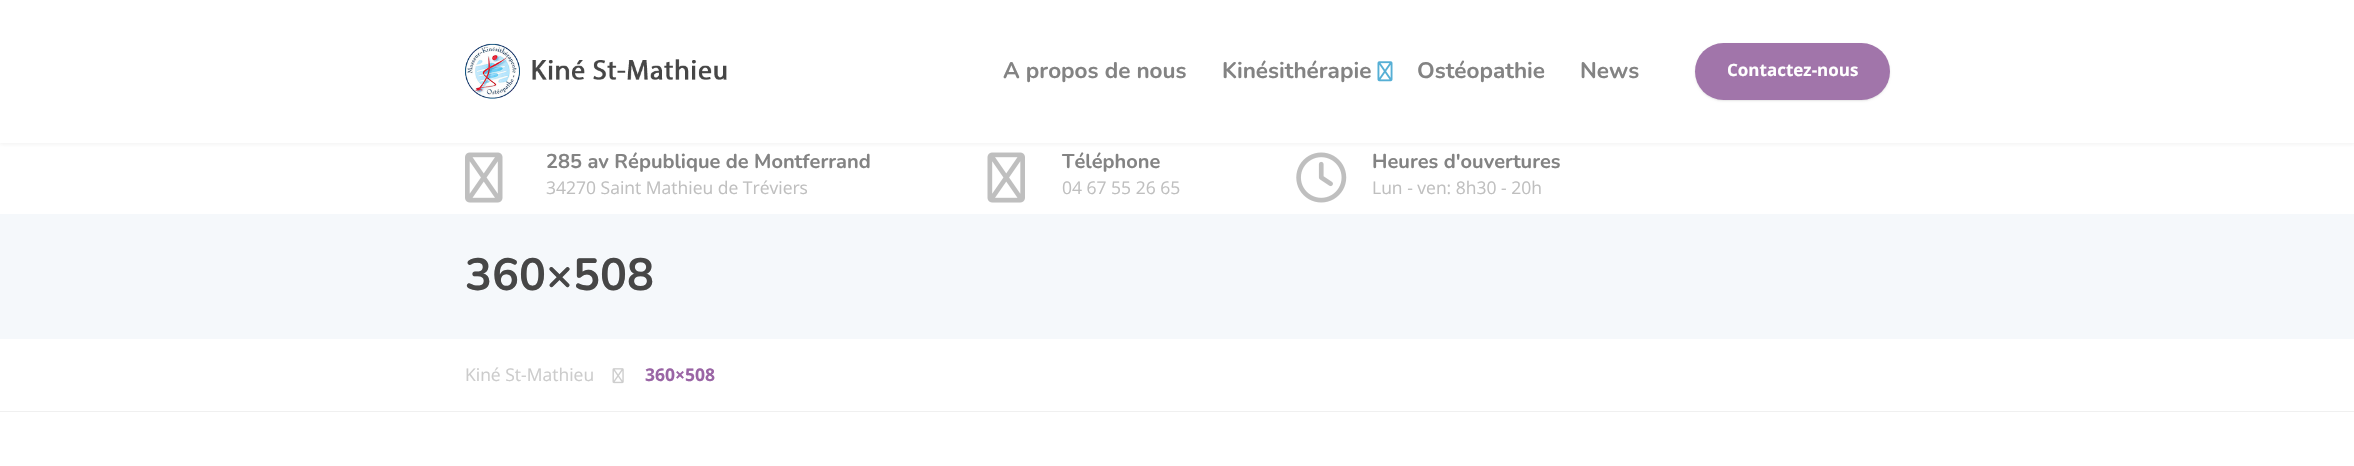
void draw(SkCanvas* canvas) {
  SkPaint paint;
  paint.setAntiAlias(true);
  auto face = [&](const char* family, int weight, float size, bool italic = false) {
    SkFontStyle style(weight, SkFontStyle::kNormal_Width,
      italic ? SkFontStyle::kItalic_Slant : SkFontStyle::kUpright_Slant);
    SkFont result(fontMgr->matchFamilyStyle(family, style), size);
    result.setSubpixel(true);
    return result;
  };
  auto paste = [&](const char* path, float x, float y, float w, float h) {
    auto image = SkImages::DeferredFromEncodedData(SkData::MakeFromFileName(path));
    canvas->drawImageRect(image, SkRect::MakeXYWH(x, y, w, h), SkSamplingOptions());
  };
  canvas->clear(0xffffffff);
  paint.setColor(0x12323232);
  paint.setMaskFilter(SkMaskFilter::MakeBlur(kNormal_SkBlurStyle, 2));
  canvas->drawRect(SkRect::MakeXYWH(0, 1, 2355, 143), paint);
  paint.setMaskFilter(nullptr);
  paint.setColor(0xffffffff);
  canvas->drawRect(SkRect::MakeXYWH(0, 0, 2354, 143), paint);
  paste("img/1.png", 465, 43, 262, 56);
  paste("img/2.png", 1377, 61, 16, 21);
  paint.setColor(0x1a000000);
  paint.setMaskFilter(SkMaskFilter::MakeBlur(kNormal_SkBlurStyle, 1));
  canvas->drawRoundRect(SkRect::MakeXYWH(1695, 44, 195, 57), 28.5f, 28.5f, paint);
  paint.setMaskFilter(nullptr);
  paint.setColor(0xffa175aa);
  canvas->drawRoundRect(SkRect::MakeXYWH(1695, 43, 195, 57), 28.5f, 28.5f, paint);
  paste("img/3.png", 465, 152, 38, 51);
  paste("img/4.png", 987, 152, 38, 51);
  paste("img/5.png", 1296, 152, 51, 51);
  paint.setColor(0xfff5f8fb);
  canvas->drawRect(SkRect::MakeXYWH(0, 214, 2354, 125), paint);
  paint.setColor(0xfff0f0f0);
  canvas->drawRect(SkRect::MakeXYWH(0, 411, 2354, 1), paint);
  paste("img/6.png", 612, 368, 12, 16);
  auto f0 = face("Nunito", 700, 22.5f);
  paint.setColor(0xff838383);
  {
    const struct { const char* s; float x, y; } items[] = {
      {"A propos de nous", 1003, 78},
      {"Kinésithérapie", 1222, 78},
      {"Ostéopathie", 1417, 78},
      {"News", 1580, 78},
    };
    for (auto [s, x, y] : items) {
      canvas->drawString(s, x, y, f0, paint);
    }
  }
  auto f1 = face("Open Sans", 700, 17);
  paint.setColor(0xffffffff);
  canvas->drawString("Contactez-nous", 1727, 76, f1, paint);
  auto f2 = face("Nunito", 700, 20);
  paint.setColor(0xff838383);
  canvas->drawString("285 av République de Montferrand", 546, 168, f2, paint);
  auto f3 = face("Open Sans", 400, 17.5f);
  paint.setColor(0xffbfbfbf);
  canvas->drawString("34270 Saint Mathieu de Tréviers", 546, 194, f3, paint);
  paint.setColor(0xff838383);
  canvas->drawString("Téléphone", 1062, 168, f2, paint);
  paint.setColor(0xffbfbfbf);
  canvas->drawString("04 67 55 26 65", 1062, 194, f3, paint);
  paint.setColor(0xff838383);
  canvas->drawString("Heures d'ouvertures", 1372, 168, f2, paint);
  paint.setColor(0xffbfbfbf);
  canvas->drawString("Lun - ven: 8h30 - 20h", 1372, 194, f3, paint);
  auto f4 = face("Nunito", 700, 45);
  paint.setColor(0xff464646);
  canvas->drawString("360×508", 465, 290, f4, paint);
  paint.setColor(0xffcccccc);
  canvas->drawString("Kiné St-Mathieu", 465, 381, f3, paint);
  auto f5 = face("Open Sans", 700, 17.5f);
  paint.setColor(0xff9a65a5);
  canvas->drawString("360×508", 645, 381, f5, paint);
}
